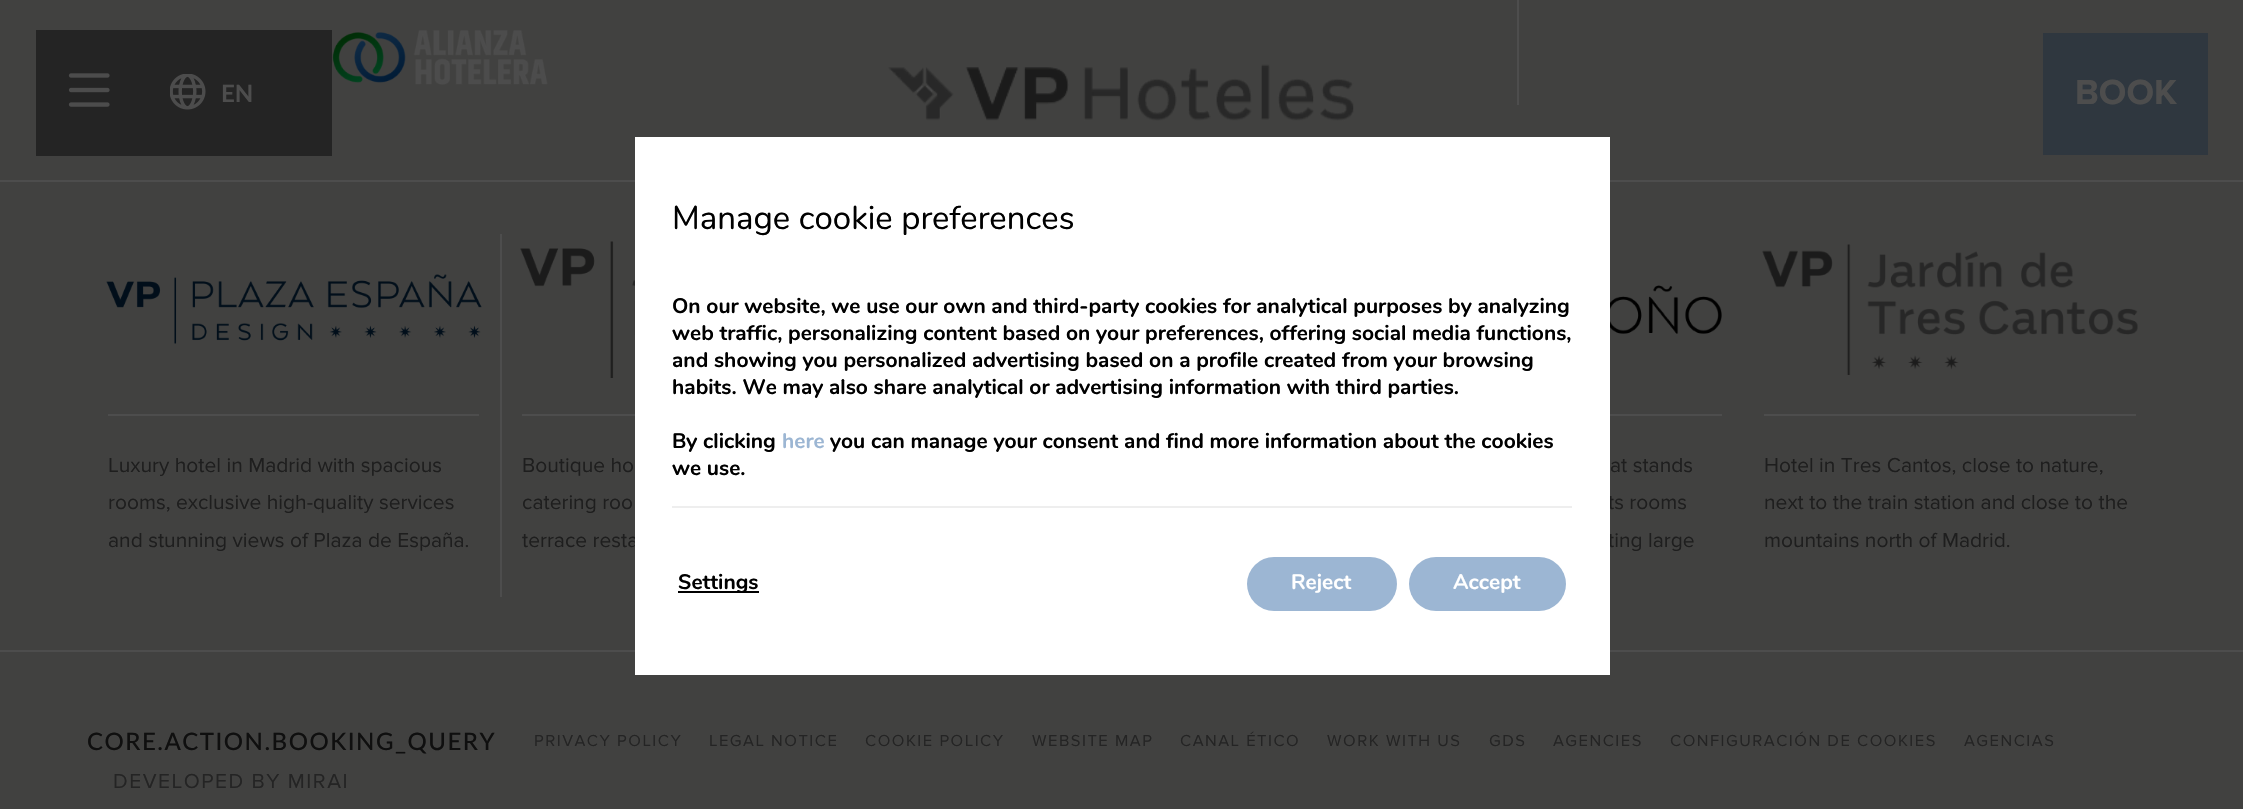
void draw(SkCanvas* canvas) {
  SkPaint paint;
  paint.setAntiAlias(true);
  auto face = [&](const char* family, int weight, float size, bool italic = false) {
    SkFontStyle style(weight, SkFontStyle::kNormal_Width,
      italic ? SkFontStyle::kItalic_Slant : SkFontStyle::kUpright_Slant);
    SkFont result(fontMgr->matchFamilyStyle(family, style), size);
    result.setSubpixel(true);
    return result;
  };
  auto writeSpaced = [&](const char* s, float x, float y, const SkFont& font, const SkPaint& ink, float letter, float word) {
    std::vector<SkGlyphID> glyphs(font.countText(s, strlen(s), SkTextEncoding::kUTF8));
    std::vector<float> xs(glyphs.size());
    font.textToGlyphs(s, strlen(s), SkTextEncoding::kUTF8, glyphs);
    font.getXPos(glyphs, xs, x);
    float extra = 0;
    for (size_t i = 0; i < glyphs.size(); i++) {
      xs[i] += extra;
      extra += letter + word * (glyphs[i] == font.unicharToGlyph(' '));
    }
    canvas->drawTextBlob(SkTextBlob::MakeFromPosHGlyphs(glyphs, xs, y, font), 0, 0, ink);
  };
  auto paste = [&](const char* path, float x, float y, float w, float h) {
    auto image = SkImages::DeferredFromEncodedData(SkData::MakeFromFileName(path));
    canvas->drawImageRect(image, SkRect::MakeXYWH(x, y, w, h), SkSamplingOptions());
  };
  canvas->clear(0xff414140);
  paint.setColor(0xff242424);
  canvas->drawRect(SkRect::MakeXYWH(36, 30, 296, 126), paint);
  paste("img/1.png", 68, 73, 42, 34);
  paste("img/2.png", 170, 74, 36, 36);
  paste("img/3.png", 888, 64, 466, 57);
  paint.setColor(0xff2f373f);
  canvas->drawRect(SkRect::MakeXYWH(2043, 33, 165, 122), paint);
  paste("img/4.png", 332, 30, 216, 55);
  {
    const struct { float x, y, w, h; SkColor color; } items[] = {
      {1517, 0, 2, 105, 0xff4d4d4d},
      {0, 180, 2243, 2, 0xff4d4d4d},
      {0, 650, 2243, 2, 0xff4d4d4d},
      {500, 234, 2, 363, 0xff4d4d4d},
    };
    for (auto [x, y, w, h, color] : items) {
      paint.setColor(color);
      canvas->drawRect(SkRect::MakeXYWH(x, y, w, h), paint);
    }
  }
  paste("img/5.png", 106, 274, 376, 70);
  canvas->drawRect(SkRect::MakeXYWH(108, 414, 371, 2), paint);
  paste("img/6.png", 520, 241, 115, 137);
  canvas->drawRect(SkRect::MakeXYWH(522, 414, 113, 2), paint);
  paste("img/7.png", 1610, 285, 112, 49);
  canvas->drawRect(SkRect::MakeXYWH(1610, 414, 112, 2), paint);
  paste("img/8.png", 1762, 244, 376, 131);
  canvas->drawRect(SkRect::MakeXYWH(1764, 414, 372, 2), paint);
  auto f0 = face("Lato", 700, 24);
  canvas->drawString("EN", 221, 102, f0, paint);
  auto f1 = face("Proxima Nova", 700, 36);
  canvas->drawString("BOOK", 2075, 104, f1, paint);
  auto f2 = face("Proxima Nova", 400, 21);
  paint.setColor(0xff1e1e1e);
  {
    const struct { const char* s; float x, y; } items[] = {
      {"Luxury hotel in Madrid with spacious", 108, 472},
      {"rooms, exclusive high-quality services", 108, 509},
      {"and stunning views of Plaza de España.", 108, 547},
      {"Boutique ho", 522, 472},
      {"catering roo", 522, 509},
      {"terrace resta", 522, 547},
      {"at stands", 1610, 472},
      {"ts rooms", 1608, 509},
      {"ting large", 1608, 547},
    };
    for (auto [s, x, y] : items) {
      canvas->drawString(s, x, y, f2, paint);
    }
  }
  paint.setColor(0xffffffff);
  canvas->drawRect(SkRect::MakeXYWH(635, 137, 975, 538), paint);
  auto f3 = face("Nunito", 700, 21);
  paint.setColor(0xff000000);
  canvas->drawString("we use.", 672, 475, f3, paint);
  canvas->drawString("you can manage your consent and find more information about the cookies", 830, 448, f3, paint);
  paint.setColor(0xff9cb6d3);
  canvas->drawString("here", 782, 448, f3, paint);
  paint.setColor(0xff000000);
  {
    const struct { const char* s; float x, y; } items[] = {
      {"By clicking", 672, 448},
      {"habits. We may also share analytical or advertising information with third parties.", 672, 394},
      {"and showing you personalized advertising based on a profile created from your browsing", 672, 367},
      {"web traffic, personalizing content based on your preferences, offering social media functions,", 672, 340},
      {"On our website, we use our own and third-party cookies for analytical purposes by analyzing", 672, 313},
    };
    for (auto [s, x, y] : items) {
      canvas->drawString(s, x, y, f3, paint);
    }
  }
  auto f4 = face("Nunito", 400, 33);
  canvas->drawString("Manage cookie preferences", 672, 229, f4, paint);
  canvas->drawRect(SkRect::MakeXYWH(678, 591, 81, 2), paint);
  canvas->drawString("Settings", 678, 589, f3, paint);
  paint.setColor(0xff9cb6d3);
  canvas->drawRoundRect(SkRect::MakeXYWH(1247, 557, 150, 54), 27, 27, paint);
  paint.setColor(0xffffffff);
  canvas->drawString("Reject", 1291, 589, f3, paint);
  paint.setColor(0xff9cb6d3);
  canvas->drawRoundRect(SkRect::MakeXYWH(1409, 557, 157, 54), 27, 27, paint);
  paint.setColor(0xffffffff);
  canvas->drawString("Accept", 1453, 589, f3, paint);
  paint.setColor(0xffeeeeee);
  canvas->drawRect(SkRect::MakeXYWH(672, 506, 900, 2), paint);
  paint.setColor(0xff1e1e1e);
  {
    const struct { const char* s; float x, y; } items[] = {
      {"Hotel in Tres Cantos, close to nature,", 1764, 472},
      {"next to the train station and close to the", 1764, 509},
      {"mountains north of Madrid.", 1764, 547},
    };
    for (auto [s, x, y] : items) {
      canvas->drawString(s, x, y, f2, paint);
    }
  }
  auto f5 = face("Lato", 500, 24);
  paint.setColor(0xff0f0f0f);
  writeSpaced("CORE.ACTION.BOOKING_QUERY", 87, 750, f5, paint, 1.5f, 0);
  auto f6 = face("Proxima Nova", 400, 16.5f);
  paint.setColor(0xff242424);
  {
    const struct { const char* s; float x, y; } items[] = {
      {"PRIVACY POLICY", 534, 746},
      {"LEGAL NOTICE", 709, 746},
      {"COOKIE POLICY", 865, 746},
      {"WEBSITE MAP", 1032, 746},
      {"CANAL ÉTICO", 1180, 746},
      {"WORK WITH US", 1327, 746},
      {"GDS", 1489, 746},
      {"AGENCIES", 1553, 746},
      {"CONFIGURACIÓN DE COOKIES", 1670, 746},
      {"AGENCIAS", 1964, 746},
    };
    for (auto [s, x, y] : items) {
      writeSpaced(s, x, y, f6, paint, 1.5f, 0);
    }
  }
  writeSpaced("DEVELOPED BY MIRAI", 113, 788, f2, paint, 1.5f, 0);
}
